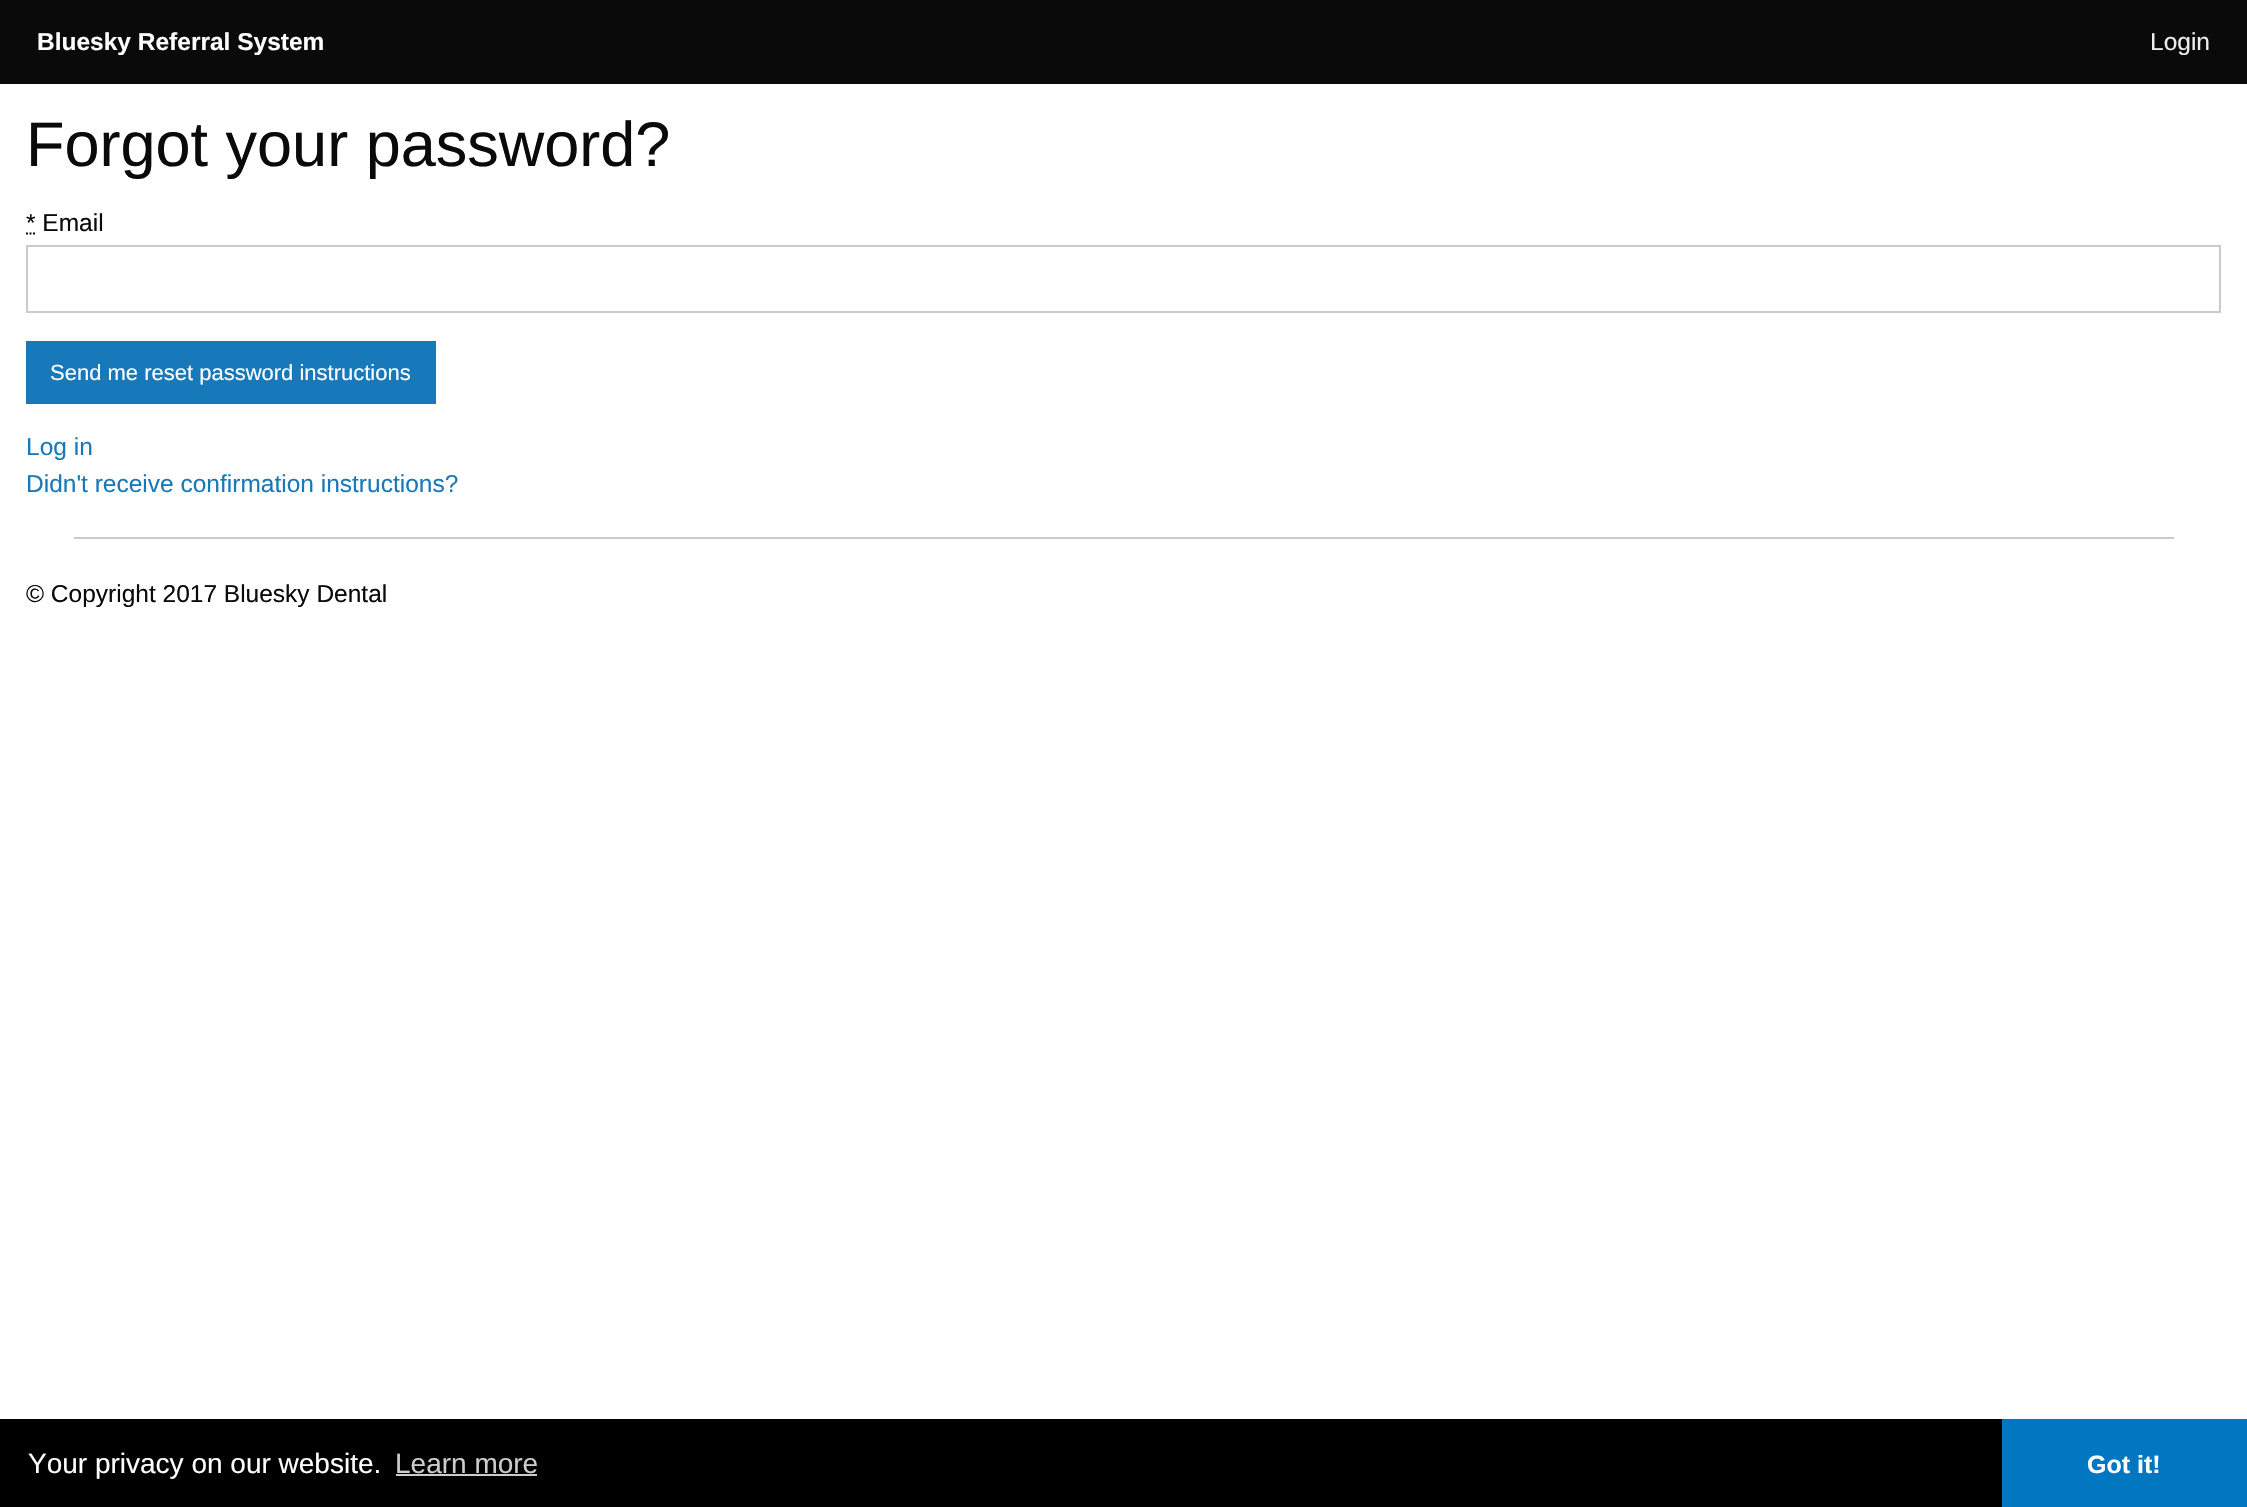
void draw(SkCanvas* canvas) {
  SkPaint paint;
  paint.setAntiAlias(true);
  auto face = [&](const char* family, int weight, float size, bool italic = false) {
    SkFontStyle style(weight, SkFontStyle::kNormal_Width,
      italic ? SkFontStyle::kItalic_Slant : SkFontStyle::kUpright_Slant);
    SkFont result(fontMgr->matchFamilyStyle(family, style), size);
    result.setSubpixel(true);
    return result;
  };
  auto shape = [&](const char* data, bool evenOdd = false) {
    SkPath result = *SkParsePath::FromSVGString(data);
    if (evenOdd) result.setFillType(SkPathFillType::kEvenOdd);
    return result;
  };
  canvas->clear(0xffffffff);
  paint.setColor(0xff0a0a0a);
  canvas->drawRect(SkRect::MakeXYWH(0, 0, 2247, 84), paint);
  paint.setStroke(true);
  paint.setStrokeWidth(1.8f);
  canvas->drawPath(shape("M26 233.5H28M29.5 233.5H31.5M33 233.5H35"), paint);
  paint.setStrokeWidth(2);
  paint.setColor(0xffcacaca);
  canvas->drawRect(SkRect::MakeXYWH(27, 246, 2193, 66), paint);
  paint.setStroke(false);
  {
    const struct { float x, y, w, h; SkColor color; } items[] = {
      {26, 341, 410, 63, 0xff1779ba},
      {74, 537, 2100, 2, 0xffcacaca},
      {0, 1419, 2002, 88, 0xff000000},
      {396, 1474, 141, 2, 0xffcccccc},
      {2002, 1419, 245, 88, 0xff0177c1},
    };
    for (auto [x, y, w, h, color] : items) {
      paint.setColor(color);
      canvas->drawRect(SkRect::MakeXYWH(x, y, w, h), paint);
    }
  }
  auto f0 = face("Liberation Sans", 700, 24.5f);
  paint.setColor(0xfffefefe);
  canvas->drawString("Bluesky Referral System", 37, 50, f0, paint);
  auto f1 = face("Liberation Sans", 400, 24.5f);
  paint.setColor(0xffeeeeee);
  canvas->drawString("Login", 2150, 50, f1, paint);
  auto f2 = face("Liberation Sans", 400, 63);
  paint.setColor(0xff0a0a0a);
  canvas->drawString("Forgot your password?", 26, 166, f2, paint);
  canvas->drawString("* Email", 26, 231, f1, paint);
  auto f3 = face("Liberation Sans", 400, 22);
  paint.setColor(0xfffefefe);
  canvas->drawString("Send me reset password instructions", 50, 380, f3, paint);
  paint.setColor(0xff1779ba);
  canvas->drawString("Log in", 26, 455, f1, paint);
  canvas->drawString("Didn't receive confirmation instructions?", 26, 492, f1, paint);
  paint.setColor(0xff0a0a0a);
  canvas->drawString("© Copyright 2017 Bluesky Dental", 26, 602, f1, paint);
  auto f4 = face("Liberation Sans", 400, 28);
  paint.setColor(0xfffefefe);
  canvas->drawString("Your privacy on our website.", 28, 1473, f4, paint);
  paint.setColor(0xffcccccc);
  canvas->drawString("Learn more", 395, 1473, f4, paint);
  auto f5 = face("Liberation Sans", 700, 25);
  paint.setColor(0xfffefefe);
  canvas->drawString("Got it!", 2087, 1473, f5, paint);
}
